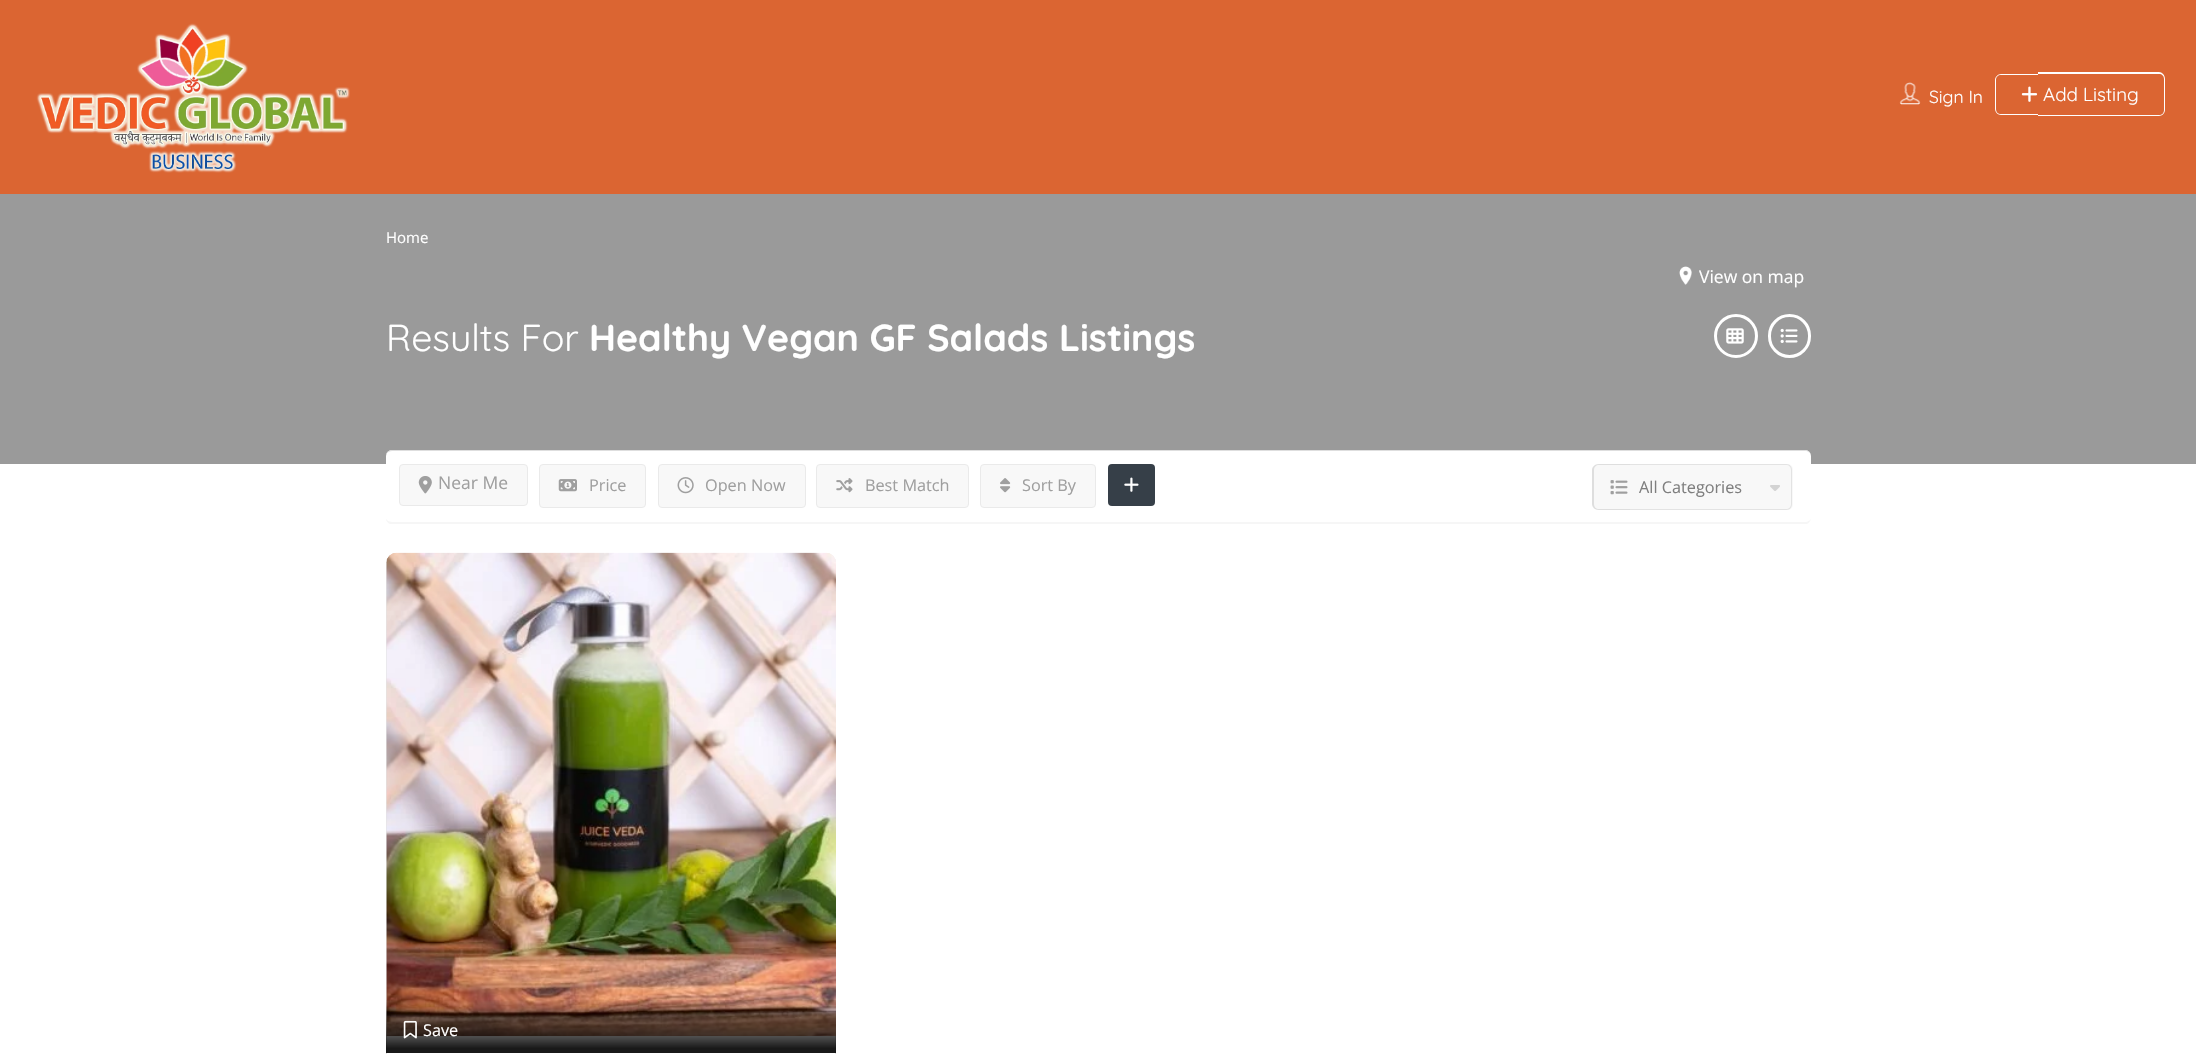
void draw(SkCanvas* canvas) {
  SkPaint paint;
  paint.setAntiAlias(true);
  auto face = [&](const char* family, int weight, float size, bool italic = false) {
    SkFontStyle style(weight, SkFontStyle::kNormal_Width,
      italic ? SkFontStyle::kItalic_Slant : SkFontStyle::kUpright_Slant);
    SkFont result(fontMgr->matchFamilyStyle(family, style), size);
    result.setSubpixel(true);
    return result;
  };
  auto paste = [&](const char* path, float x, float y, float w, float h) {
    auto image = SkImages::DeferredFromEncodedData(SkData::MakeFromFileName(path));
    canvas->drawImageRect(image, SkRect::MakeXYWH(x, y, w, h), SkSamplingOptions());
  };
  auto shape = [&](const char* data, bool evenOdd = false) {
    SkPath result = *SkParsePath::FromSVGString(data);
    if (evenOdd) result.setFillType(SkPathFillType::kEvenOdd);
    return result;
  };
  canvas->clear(0xffffffff);
  paint.setColor(0xffdb6532);
  canvas->drawRect(SkRect::MakeXYWH(0, 0, 2196, 194), paint);
  paste("img/1.png", 36, 23, 314, 150);
  paste("img/2.png", 1899, 82, 22, 23);
  paint.setColor(0xffffffff);
  canvas->drawPath(shape("M2001 74H2038V115H2001C1998 115 1995 112 1995 109V80C1995 77 1998 74 2001 74ZM2001 75H2038V114H2001C1998 114 1996 112 1996 109V80C1996 77 1998 75 2001 75Z", true), paint);
  canvas->drawPath(shape("M2038 72H2159C2162 72 2165 75 2165 79V110C2165 113 2162 116 2159 116H2038ZM2038 74H2159C2162 74 2164 76 2164 79V110C2164 113 2162 115 2159 115H2038Z", true), paint);
  paste("img/3.png", 2021, 86, 17, 16);
  paint.setColor(0xff9a9a9a);
  canvas->drawRect(SkRect::MakeXYWH(0, 194, 2196, 270), paint);
  paste("img/4.png", 1679, 266, 13, 19);
  paint.setStroke(true);
  paint.setStrokeWidth(3);
  paint.setColor(0xffffffff);
  canvas->drawCircle(1736, 336, 20.5f, paint);
  paste("img/5.png", 1726, 328, 18, 16);
  canvas->drawRoundRect(SkRect::MakeXYWH(1769.5f, 315.5f, 40, 41), 20, 20, paint);
  paste("img/6.png", 1780, 328, 18, 15);
  paint.setStroke(false);
  canvas->drawRoundRect(SkRect::MakeXYWH(386, 450, 1425, 74), 6, 6, paint);
  paint.setColor(0xffdedede);
  canvas->drawPath(shape("M392 450C390 450 386 452 386 455C387 452 390 451 392 451H1805C1808 451 1811 453 1811 456C1811 453 1808 450 1805 450Z"), paint);
  paint.setColor(0xfff6f6f6);
  canvas->drawPath(shape("M1807 524C1809 523 1811 520 1811 518C1811 520 1808 522 1805 522H392C390 522 387 521 386 519C386 521 389 524 390 524Z"), paint);
  paint.setColor(0xfff8f8f8);
  canvas->drawRoundRect(SkRect::MakeXYWH(399.5f, 464.5f, 128, 41), 3.5f, 3.5f, paint);
  paint.setStroke(true);
  paint.setStrokeWidth(1);
  paint.setColor(0xffeaeaea);
  canvas->drawRoundRect(SkRect::MakeXYWH(399.5f, 464.5f, 128, 41), 3.5f, 3.5f, paint);
  paste("img/7.png", 418, 476, 14, 18);
  paint.setStroke(false);
  paint.setColor(0xfff8f8f8);
  canvas->drawRoundRect(SkRect::MakeXYWH(539.5f, 464.5f, 106, 43), 3.5f, 3.5f, paint);
  paint.setStroke(true);
  paint.setColor(0xffeaeaea);
  canvas->drawRoundRect(SkRect::MakeXYWH(539.5f, 464.5f, 106, 43), 3.5f, 3.5f, paint);
  paste("img/8.png", 558, 479, 19, 13);
  paint.setStroke(false);
  paint.setColor(0xfff8f8f8);
  canvas->drawRoundRect(SkRect::MakeXYWH(658.5f, 464.5f, 147, 43), 3.5f, 3.5f, paint);
  paint.setStroke(true);
  paint.setColor(0xffeaeaea);
  canvas->drawRoundRect(SkRect::MakeXYWH(658.5f, 464.5f, 147, 43), 3.5f, 3.5f, paint);
  paste("img/9.png", 677, 477, 17, 17);
  paint.setStroke(false);
  paint.setColor(0xfff8f8f8);
  canvas->drawRoundRect(SkRect::MakeXYWH(816.5f, 464.5f, 152, 43), 3.5f, 3.5f, paint);
  paint.setStroke(true);
  paint.setColor(0xffeaeaea);
  canvas->drawRoundRect(SkRect::MakeXYWH(816.5f, 464.5f, 152, 43), 3.5f, 3.5f, paint);
  paste("img/10.png", 836, 478, 17, 15);
  paint.setStroke(false);
  paint.setColor(0xfff8f8f8);
  canvas->drawRoundRect(SkRect::MakeXYWH(980.5f, 464.5f, 115, 43), 3.5f, 3.5f, paint);
  paint.setStroke(true);
  paint.setColor(0xffeaeaea);
  canvas->drawRoundRect(SkRect::MakeXYWH(980.5f, 464.5f, 115, 43), 3.5f, 3.5f, paint);
  paste("img/11.png", 1000, 478, 11, 15);
  paint.setStroke(false);
  paint.setColor(0xff363f48);
  canvas->drawRoundRect(SkRect::MakeXYWH(1108, 464, 47, 42), 4, 4, paint);
  paste("img/12.png", 1124, 477, 15, 15);
  paint.setColor(0xfff8f8f8);
  canvas->drawPath(shape("M1599 464H1630V510H1599C1595.5 510 1593 507.5 1593 504V470C1593 466.5 1595.5 464 1599 464Z"), paint);
  paint.setColor(0xffdedede);
  canvas->drawPath(shape("M1599 464H1630V510H1599C1595 510 1592 507 1592 504V470C1592 467 1595 464 1599 464ZM1599 465H1630V509H1599C1596 509 1594 507 1594 504V470C1594 467 1596 465 1599 465Z", true), paint);
  paste("img/13.png", 1610, 480, 18, 15);
  paint.setColor(0xfff8f8f8);
  canvas->drawPath(shape("M1630 464H1787C1790.5 464 1793 466.5 1793 470V504C1793 507.5 1790.5 510 1787 510H1630Z"), paint);
  paint.setColor(0xffe3e3e3);
  canvas->drawPath(shape("M1630 464H1786C1790 464 1792 467 1792 470V504C1792 507 1790 510 1786 510H1630ZM1630 465H1786C1789 465 1791 467 1791 470V504C1791 507 1789 509 1786 509H1630Z", true), paint);
  paste("img/14.png", 1770, 485, 10, 6);
  paint.setStroke(true);
  canvas->drawRoundRect(SkRect::MakeXYWH(386.5f, 553.5f, 449, 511), 9.5f, 9.5f, paint);
  paste("img/15.png", 386, 552, 450, 485);
  paint.setStroke(false);
  {
    const SkColor colors[] = {0xe6000000, 0x00000000};
    const float stops[] = {0.08f, 0.94f};
    const SkPoint ends[] = {{611, 1053}, {611, 995}};
    paint.setShader(SkGradientShader::MakeLinear(ends, colors, stops, 2, SkTileMode::kClamp));
    paint.setAlpha(255);
  }
  canvas->drawRect(SkRect::MakeXYWH(386, 1000, 450, 53), paint);
  paste("img/16.png", 403, 1020, 14, 19);
  auto f0 = face("Quicksand", 400, 17.5f);
  paint.setShader(nullptr);
  paint.setColor(0xffffffff);
  canvas->drawString("Sign In", 1929, 103, f0, paint);
  auto f1 = face("Quicksand", 400, 18.75f);
  canvas->drawString("Add Listing", 2043, 101, f1, paint);
  auto f2 = face("Open Sans", 400, 15);
  canvas->drawString("Home", 386, 243, f2, paint);
  auto f3 = face("Open Sans", 400, 17.5f);
  canvas->drawString("View on map", 1699, 283, f3, paint);
  auto f4 = face("Quicksand", 400, 37.5f);
  canvas->drawString("Results For", 386, 351, f4, paint);
  auto f5 = face("Quicksand", 700, 37.5f);
  canvas->drawString("Healthy Vegan GF Salads Listings", 589, 351, f5, paint);
  paint.setColor(0xff9f9f9f);
  canvas->drawString("Near Me", 438, 489, f3, paint);
  auto f6 = face("Open Sans", 400, 16.25f);
  {
    const struct { const char* s; float x, y; } items[] = {
      {"Price", 589, 491},
      {"Open Now", 705, 491},
      {"Best Match", 865, 491},
      {"Sort By", 1022, 491},
    };
    for (auto [s, x, y] : items) {
      canvas->drawString(s, x, y, f6, paint);
    }
  }
  paint.setColor(0xff7f7f7f);
  canvas->drawString("All Categories", 1639, 493, f6, paint);
  paint.setColor(0xffffffff);
  canvas->drawString("Save", 423, 1036, f6, paint);
}
